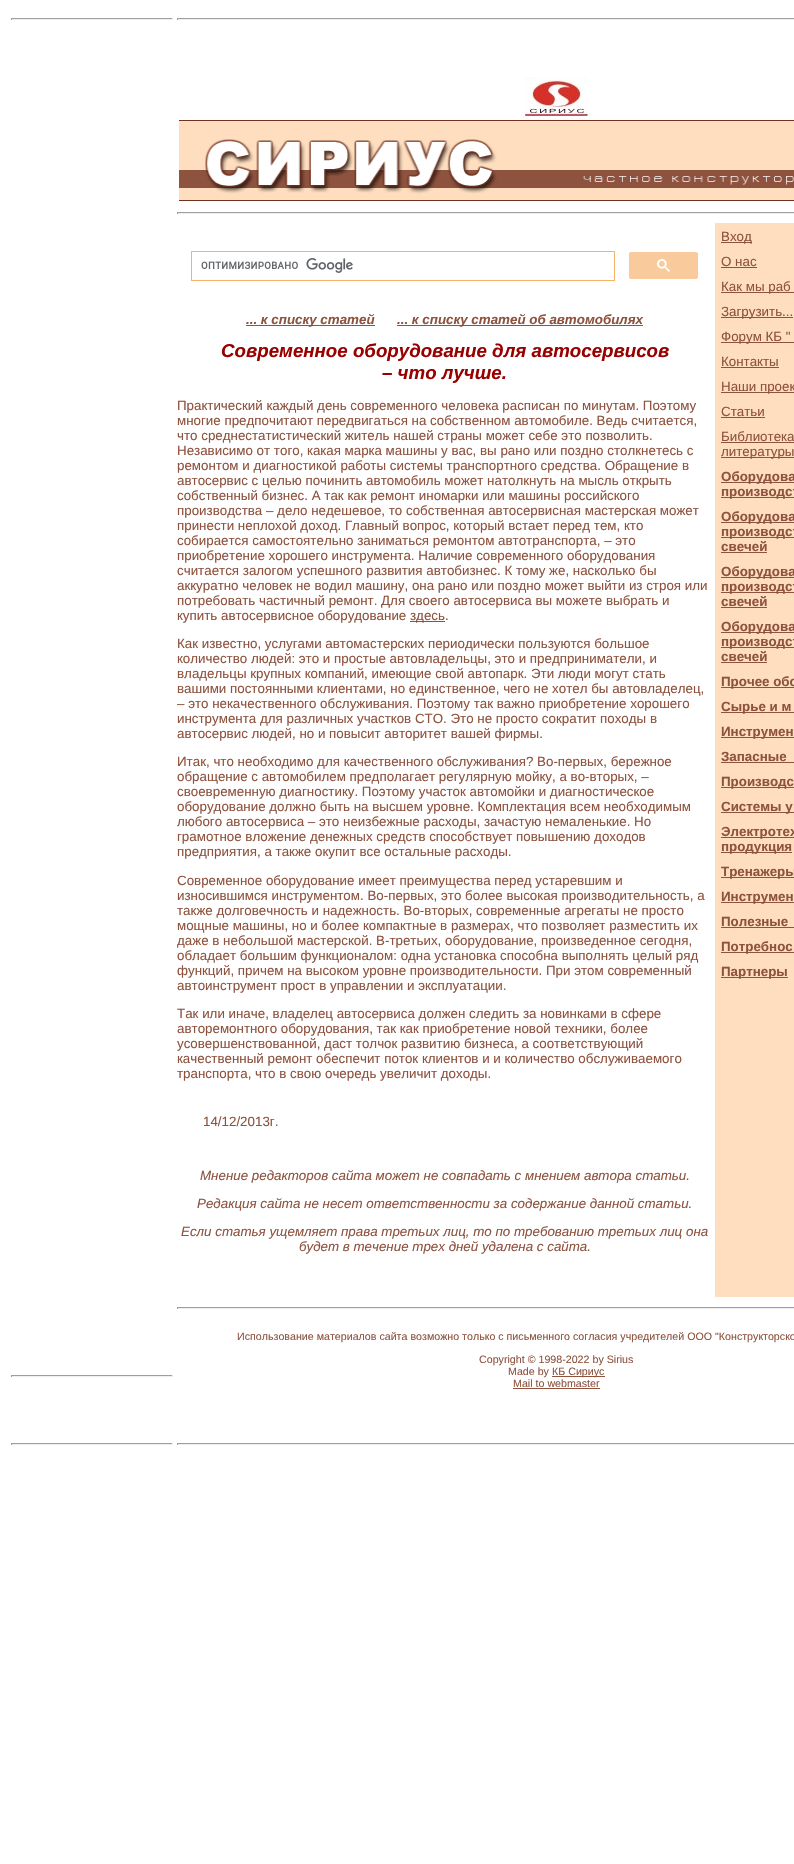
void draw(SkCanvas* canvas) {
  SkPaint paint;
  paint.setAntiAlias(true);
  auto face = [&](const char* family, int weight, float size, bool italic = false) {
    SkFontStyle style(weight, SkFontStyle::kNormal_Width,
      italic ? SkFontStyle::kItalic_Slant : SkFontStyle::kUpright_Slant);
    SkFont result(fontMgr->matchFamilyStyle(family, style), size);
    result.setSubpixel(true);
    return result;
  };
  auto paste = [&](const char* path, float x, float y, float w, float h) {
    auto image = SkImages::DeferredFromEncodedData(SkData::MakeFromFileName(path));
    canvas->drawImageRect(image, SkRect::MakeXYWH(x, y, w, h), SkSamplingOptions());
  };
  canvas->clear(0xffffffff);
  {
    const struct { float x, y, w, h; SkColor color; } items[] = {
      {11, 18, 162, 1, 0xff9f9f9f},
      {172, 18, 1, 2, 0xffeeeeee},
      {11, 19, 162, 1, 0xffeeeeee},
      {11, 18, 1, 2, 0xff9f9f9f},
      {177, 18, 617, 1, 0xff9f9f9f},
      {177, 19, 617, 1, 0xffeeeeee},
      {177, 18, 1, 2, 0xff9f9f9f},
    };
    for (auto [x, y, w, h, color] : items) {
      paint.setColor(color);
      canvas->drawRect(SkRect::MakeXYWH(x, y, w, h), paint);
    }
  }
  paste("img/1.png", 525, 77, 63, 39);
  paste("img/2.png", 179, 120, 615, 81);
  {
    const struct { float x, y, w, h; SkColor color; } items[] = {
      {177, 212, 617, 1, 0xff9f9f9f},
      {177, 213, 617, 1, 0xffeeeeee},
      {177, 212, 1, 2, 0xff9f9f9f},
    };
    for (auto [x, y, w, h, color] : items) {
      paint.setColor(color);
      canvas->drawRect(SkRect::MakeXYWH(x, y, w, h), paint);
    }
  }
  paint.setStroke(true);
  paint.setStrokeWidth(1);
  paint.setColor(0xfff6b26b);
  canvas->drawRect(SkRect::MakeXYWH(191.5f, 251.5f, 423, 29), paint);
  paste("img/3.png", 201, 258, 152, 15);
  paint.setStroke(false);
  paint.setColor(0xfff9cb9c);
  canvas->drawRoundRect(SkRect::MakeXYWH(629.5f, 252.5f, 68, 26), 1.5f, 1.5f, paint);
  paint.setStroke(true);
  canvas->drawRoundRect(SkRect::MakeXYWH(629.5f, 252.5f, 68, 26), 1.5f, 1.5f, paint);
  paste("img/4.png", 657, 259, 13, 13);
  paint.setStroke(false);
  {
    const struct { float x, y, w, h; SkColor color; } items[] = {
      {246, 325, 129, 1, 0xff8e533f},
      {397, 325, 246, 1, 0xff8e533f},
      {410, 621, 35, 1, 0xff8e533f},
      {715, 223, 79, 1074, 0xffffdebf},
      {721, 242, 31, 1, 0xff8e533f},
      {721, 267, 36, 1, 0xff8e533f},
      {721, 292, 73, 1, 0xff8e533f},
      {721, 317, 72, 1, 0xff8e533f},
      {721, 342, 73, 1, 0xff8e533f},
      {721, 367, 58, 1, 0xff8e533f},
      {721, 392, 73, 1, 0xff8e533f},
      {721, 417, 44, 1, 0xff8e533f},
      {721, 442, 73, 1, 0xff8e533f},
      {721, 457, 73, 1, 0xff8e533f},
      {721, 482, 73, 1, 0xff8e533f},
      {721, 497, 73, 1, 0xff8e533f},
      {721, 522, 73, 1, 0xff8e533f},
      {721, 537, 73, 1, 0xff8e533f},
      {721, 552, 46, 1, 0xff8e533f},
      {721, 577, 73, 1, 0xff8e533f},
      {721, 592, 73, 1, 0xff8e533f},
      {721, 607, 46, 1, 0xff8e533f},
      {721, 632, 73, 1, 0xff8e533f},
      {721, 647, 73, 1, 0xff8e533f},
      {721, 662, 46, 1, 0xff8e533f},
      {721, 687, 73, 1, 0xff8e533f},
      {721, 712, 73, 1, 0xff8e533f},
      {721, 737, 73, 1, 0xff8e533f},
      {721, 762, 73, 1, 0xff8e533f},
      {721, 787, 73, 1, 0xff8e533f},
      {721, 812, 73, 1, 0xff8e533f},
      {721, 837, 73, 1, 0xff8e533f},
      {721, 852, 71, 1, 0xff8e533f},
      {721, 877, 73, 1, 0xff8e533f},
      {721, 902, 73, 1, 0xff8e533f},
      {721, 927, 73, 1, 0xff8e533f},
      {721, 952, 73, 1, 0xff8e533f},
      {721, 977, 67, 1, 0xff8e533f},
      {177, 1307, 617, 1, 0xff9f9f9f},
      {177, 1308, 617, 1, 0xffeeeeee},
      {177, 1307, 1, 2, 0xff9f9f9f},
      {11, 1375, 162, 1, 0xff9f9f9f},
      {172, 1375, 1, 2, 0xffeeeeee},
      {11, 1376, 162, 1, 0xffeeeeee},
      {11, 1375, 1, 2, 0xff9f9f9f},
      {552, 1376, 53, 1, 0xff8e533f},
      {513, 1388, 87, 1, 0xff8e533f},
      {11, 1443, 162, 1, 0xff9f9f9f},
      {172, 1443, 1, 2, 0xffeeeeee},
      {11, 1444, 162, 1, 0xffeeeeee},
      {11, 1443, 1, 2, 0xff9f9f9f},
      {177, 1443, 617, 1, 0xff9f9f9f},
      {177, 1444, 617, 1, 0xffeeeeee},
      {177, 1443, 1, 2, 0xff9f9f9f},
    };
    for (auto [x, y, w, h, color] : items) {
      paint.setColor(color);
      canvas->drawRect(SkRect::MakeXYWH(x, y, w, h), paint);
    }
  }
  auto f0 = face("Liberation Sans", 700, 13.35f, true);
  paint.setColor(0xff8e533f);
  canvas->drawString("... к списку статей", 246, 324, f0, paint);
  canvas->drawString("... к списку статей об автомобилях", 397, 324, f0, paint);
  auto f1 = face("Liberation Sans", 700, 18.7f, true);
  paint.setColor(0xff990000);
  canvas->drawString("Современное оборудование для автосервисов", 221, 357, f1, paint);
  canvas->drawString("– что лучше.", 382, 379, f1, paint);
  auto f2 = face("Liberation Sans", 400, 13.35f);
  paint.setColor(0xff8e533f);
  {
    const struct { const char* s; float x, y; } items[] = {
      {"Практический каждый день современного человека расписан по минутам. Поэтому", 177, 410},
      {"многие предпочитают передвигаться на собственном автомобиле. Ведь считается,", 177, 425},
      {"что среднестатистический житель нашей страны может себе это позволить.", 177, 440},
      {"Независимо от того, какая марка машины у вас, вы рано или поздно столкнетесь с", 177, 455},
      {"ремонтом и диагностикой работы системы транспортного средства. Обращение в", 177, 470},
      {"автосервис с целью починить автомобиль может натолкнуть на мысль открыть", 177, 485},
      {"собственный бизнес. А так как ремонт иномарки или машины российского", 177, 500},
      {"производства – дело недешевое, то собственная автосервисная мастерская может", 177, 515},
      {"принести неплохой доход. Главный вопрос, который встает перед тем, кто", 177, 530},
      {"собирается самостоятельно заниматься ремонтом автотранспорта, – это", 177, 545},
      {"приобретение хорошего инструмента. Наличие современного оборудования", 177, 560},
      {"считается залогом успешного развития автобизнес. К тому же, насколько бы", 177, 575},
      {"аккуратно человек не водил машину, она рано или поздно может выйти из строя или", 177, 590},
      {"потребовать частичный ремонт. Для своего автосервиса вы можете выбрать и", 177, 605},
      {"купить автосервисное оборудование", 177, 620},
      {"здесь.", 410, 620},
      {"Как известно, услугами автомастерских периодически пользуются большое", 177, 648},
      {"количество людей: это и простые автовладельцы, это и предприниматели, и", 177, 663},
      {"владельцы крупных компаний, имеющие свой автопарк. Эти люди могут стать", 177, 678},
      {"вашими постоянными клиентами, но единственное, чего не хотел бы автовладелец,", 177, 693},
      {"– это некачественного обслуживания. Поэтому так важно приобретение хорошего", 177, 708},
      {"инструмента для различных участков СТО. Это не просто сократит походы в", 177, 723},
      {"автосервис людей, но и повысит авторитет вашей фирмы.", 177, 738},
      {"Итак, что необходимо для качественного обслуживания? Во-первых, бережное", 177, 766},
      {"обращение с автомобилем предполагает регулярную мойку, а во-вторых, –", 177, 781},
      {"своевременную диагностику. Поэтому участок автомойки и диагностическое", 177, 796},
      {"оборудование должно быть на высшем уровне. Комплектация всем необходимым", 177, 811},
      {"любого автосервиса – это неизбежные расходы, зачастую немаленькие. Но", 177, 826},
      {"грамотное вложение денежных средств способствует повышению доходов", 177, 841},
      {"предприятия, а также окупит все остальные расходы.", 177, 856},
      {"Современное оборудование имеет преимущества перед устаревшим и", 177, 885},
      {"износившимся инструментом. Во-первых, это более высокая производительность, а", 177, 900},
      {"также долговечность и надежность. Во-вторых, современные агрегаты не просто", 177, 915},
      {"мощные машины, но и более компактные в размерах, что позволяет разместить их", 177, 930},
      {"даже в небольшой мастерской. В-третьих, оборудование, произведенное сегодня,", 177, 945},
      {"обладает большим функционалом: одна установка способна выполнять целый ряд", 177, 960},
      {"функций, причем на высоком уровне производительности. При этом современный", 177, 975},
      {"автоинструмент прост в управлении и эксплуатации.", 177, 990},
      {"Так или иначе, владелец автосервиса должен следить за новинками в сфере", 177, 1018},
      {"авторемонтного оборудования, так как приобретение новой техники, более", 177, 1033},
      {"усовершенствованной, даст толчок развитию бизнеса, а соответствующий", 177, 1048},
      {"качественный ремонт обеспечит поток клиентов и и количество обслуживаемого", 177, 1063},
      {"транспорта, что в свою очередь увеличит доходы.", 177, 1078},
      {"14/12/2013г.", 203, 1126},
    };
    for (auto [s, x, y] : items) {
      canvas->drawString(s, x, y, f2, paint);
    }
  }
  auto f3 = face("Liberation Sans", 400, 13.35f, true);
  {
    const struct { const char* s; float x, y; } items[] = {
      {"Мнение редакторов сайта может не совпадать с мнением автора статьи.", 200, 1180},
      {"Редакция сайта не несет ответственности за содержание данной статьи.", 197, 1208},
      {"Если статья ущемляет права третьих лиц, то по требованию третьих лиц она", 181, 1236},
      {"будет в течение трех дней удалена с сайта.", 299, 1251},
    };
    for (auto [s, x, y] : items) {
      canvas->drawString(s, x, y, f3, paint);
    }
  }
  {
    const struct { const char* s; float x, y; } items[] = {
      {"Вход", 721, 241},
      {"О нас", 721, 266},
      {"Как мы раб", 721, 291},
      {"Загрузить...", 721, 316},
      {"Форум КБ \"", 721, 341},
      {"Контакты", 721, 366},
      {"Наши проек", 721, 391},
      {"Статьи", 721, 416},
      {"Библиотека", 721, 441},
      {"литературы", 721, 456},
    };
    for (auto [s, x, y] : items) {
      canvas->drawString(s, x, y, f2, paint);
    }
  }
  auto f4 = face("Liberation Sans", 700, 13.35f);
  {
    const struct { const char* s; float x, y; } items[] = {
      {"Оборудова", 721, 481},
      {"производст", 721, 496},
      {"Оборудова", 721, 521},
      {"производст", 721, 536},
      {"свечей", 721, 551},
      {"Оборудова", 721, 576},
      {"производст", 721, 591},
      {"свечей", 721, 606},
      {"Оборудова", 721, 631},
      {"производст", 721, 646},
      {"свечей", 721, 661},
      {"Прочее обо", 721, 686},
      {"Сырье и м", 721, 711},
      {"Инструмен", 721, 736},
      {"Запасные", 721, 761},
      {"Производс", 721, 786},
      {"Системы у", 721, 811},
      {"Электротех", 721, 836},
      {"продукция", 721, 851},
      {"Тренажеры", 721, 876},
      {"Инструмен", 721, 901},
      {"Полезные", 721, 926},
      {"Потребнос", 721, 951},
      {"Партнеры", 721, 976},
    };
    for (auto [s, x, y] : items) {
      canvas->drawString(s, x, y, f4, paint);
    }
  }
  auto f5 = face("Liberation Sans", 400, 10.67f);
  {
    const struct { const char* s; float x, y; } items[] = {
      {"Использование материалов сайта возможно только с письменного согласия учредителей ООО \"Конструкторско", 237, 1340},
      {"Copyright © 1998-2022 by Sirius", 479, 1363},
      {"Made by", 508, 1375},
      {"КБ Сириус", 552, 1375},
      {"Mail to webmaster", 513, 1387},
    };
    for (auto [s, x, y] : items) {
      canvas->drawString(s, x, y, f5, paint);
    }
  }
}
